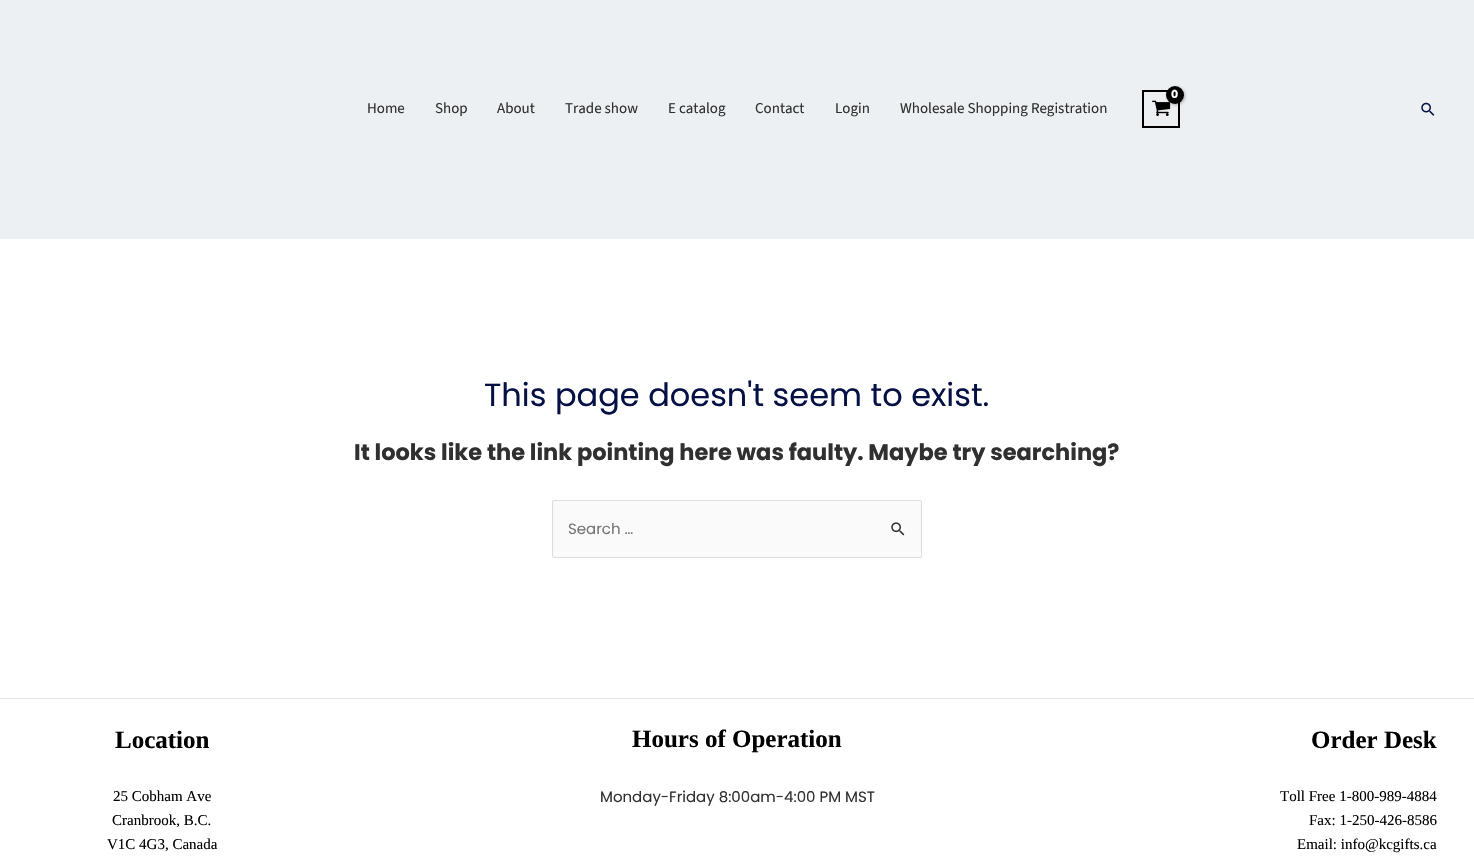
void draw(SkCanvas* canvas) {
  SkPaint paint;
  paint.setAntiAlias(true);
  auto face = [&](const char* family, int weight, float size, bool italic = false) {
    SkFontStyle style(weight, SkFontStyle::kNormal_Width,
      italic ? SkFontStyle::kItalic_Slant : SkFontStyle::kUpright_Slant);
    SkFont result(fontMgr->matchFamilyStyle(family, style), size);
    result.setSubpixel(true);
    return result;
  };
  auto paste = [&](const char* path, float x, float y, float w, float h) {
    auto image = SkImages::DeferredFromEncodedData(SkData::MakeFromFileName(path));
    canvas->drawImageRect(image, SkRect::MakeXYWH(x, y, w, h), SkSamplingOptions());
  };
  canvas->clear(0xffffffff);
  paint.setColor(0xffecf0f2);
  canvas->drawRect(SkRect::MakeXYWH(0, 0, 1474, 239), paint);
  paint.setStroke(true);
  paint.setStrokeWidth(2);
  paint.setColor(0xff000000);
  canvas->drawRect(SkRect::MakeXYWH(1143, 91, 36, 36), paint);
  paste("img/1.png", 1152, 100, 19, 16);
  paint.setStroke(false);
  paint.setColor(0x4d000000);
  paint.setMaskFilter(SkMaskFilter::MakeBlur(kNormal_SkBlurStyle, 1.5f));
  canvas->drawRoundRect(SkRect::MakeXYWH(1167, 87, 18, 18), 9, 9, paint);
  paint.setMaskFilter(nullptr);
  paint.setColor(0xff000000);
  canvas->drawCircle(1175, 95, 9, paint);
  paste("img/2.png", 1421, 102, 14, 14);
  paint.setColor(0xfffafafa);
  canvas->drawRoundRect(SkRect::MakeXYWH(552.5f, 500.5f, 369, 57), 1.5f, 1.5f, paint);
  paint.setStroke(true);
  paint.setStrokeWidth(1);
  paint.setColor(0xffdddddd);
  canvas->drawRoundRect(SkRect::MakeXYWH(552.5f, 500.5f, 369, 57), 1.5f, 1.5f, paint);
  paste("img/3.png", 891, 522, 14, 14);
  paint.setStroke(false);
  paint.setColor(0xffe6e6e6);
  canvas->drawRect(SkRect::MakeXYWH(0, 698, 1474, 1), paint);
  auto f0 = face("Poppins", 700, 11);
  paint.setColor(0xffffffff);
  canvas->drawString("0", 1171, 98, f0, paint);
  auto f1 = face("Source Sans 3", 400, 15);
  paint.setColor(0xff303030);
  {
    const struct { const char* s; float x, y; } items[] = {
      {"Home", 367, 113},
      {"Shop", 435, 113},
      {"About", 497, 113},
      {"Trade show", 565, 113},
      {"E catalog", 668, 113},
      {"Contact", 755, 113},
      {"Login", 835, 113},
      {"Wholesale Shopping Registration", 900, 113},
    };
    for (auto [s, x, y] : items) {
      canvas->drawString(s, x, y, f1, paint);
    }
  }
  auto f2 = face("Poppins", 400, 32);
  paint.setColor(0xff051145);
  canvas->drawString("This page doesn't seem to exist.", 484, 406, f2, paint);
  auto f3 = face("Poppins", 700, 22.5f);
  paint.setColor(0xff303030);
  canvas->drawString("It looks like the link pointing here was faulty. Maybe try searching?", 354, 460, f3, paint);
  auto f4 = face("Poppins", 400, 15);
  paint.setColor(0xff757575);
  canvas->drawString("Search …", 568, 534, f4, paint);
  auto f5 = face("Liberation Serif", 700, 25);
  paint.setColor(0xff000000);
  canvas->drawString("Location", 115, 748, f5, paint);
  auto f6 = face("Liberation Serif", 400, 15);
  {
    const struct { const char* s; float x, y; } items[] = {
      {"25 Cobham Ave", 113, 801},
      {"Cranbrook, B.C.", 112, 825},
      {"V1C 4G3, Canada", 107, 849},
    };
    for (auto [s, x, y] : items) {
      canvas->drawString(s, x, y, f6, paint);
    }
  }
  canvas->drawString("Hours of Operation", 632, 747, f5, paint);
  paint.setColor(0xff303030);
  canvas->drawString("Monday-Friday 8:00am-4:00 PM MST", 600, 802, f4, paint);
  paint.setColor(0xff000000);
  canvas->drawString("Order Desk", 1311, 748, f5, paint);
  {
    const struct { const char* s; float x, y; } items[] = {
      {"Toll Free 1-800-989-4884", 1280, 801},
      {"Fax: 1-250-426-8586", 1309, 825},
      {"Email: info@kcgifts.ca", 1297, 849},
    };
    for (auto [s, x, y] : items) {
      canvas->drawString(s, x, y, f6, paint);
    }
  }
}
